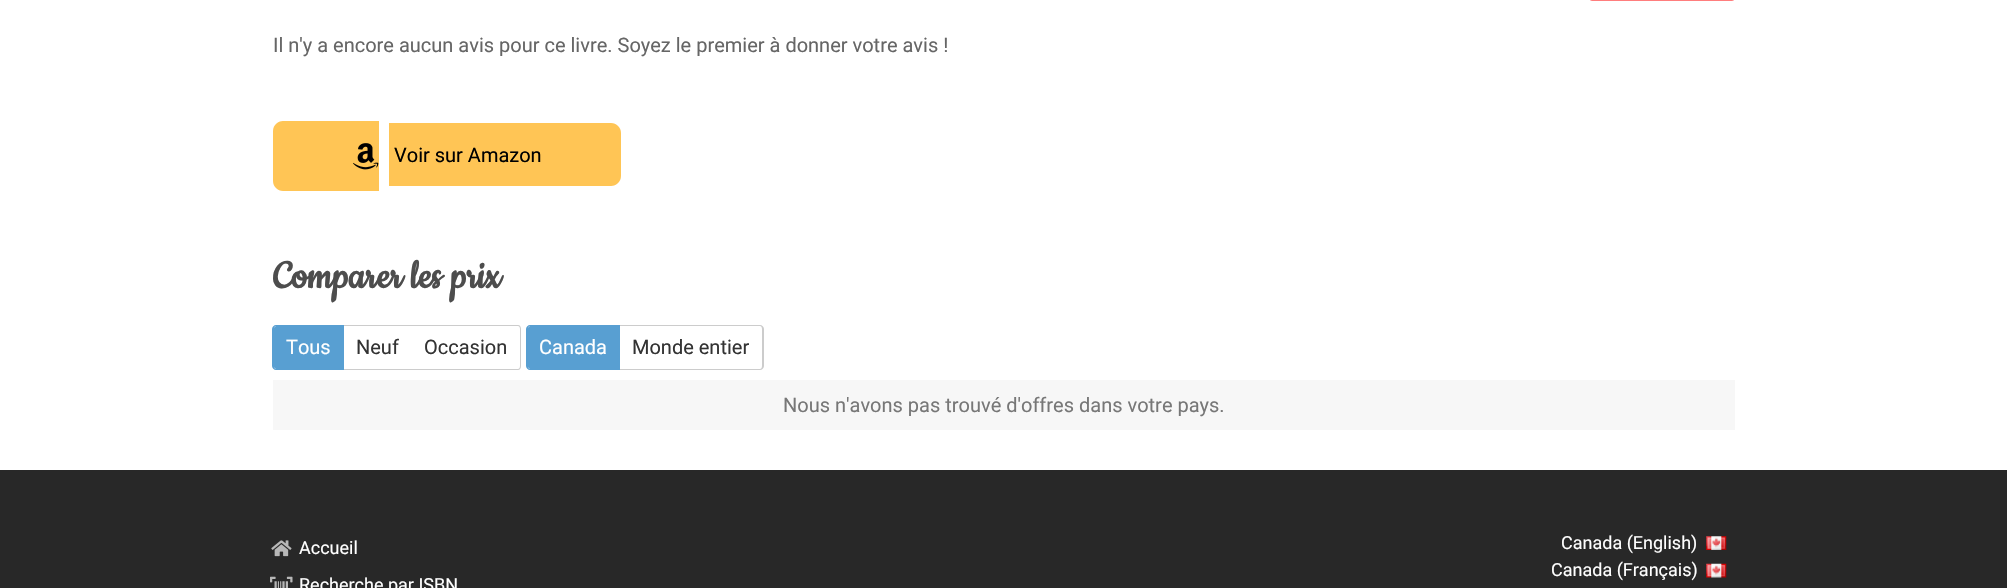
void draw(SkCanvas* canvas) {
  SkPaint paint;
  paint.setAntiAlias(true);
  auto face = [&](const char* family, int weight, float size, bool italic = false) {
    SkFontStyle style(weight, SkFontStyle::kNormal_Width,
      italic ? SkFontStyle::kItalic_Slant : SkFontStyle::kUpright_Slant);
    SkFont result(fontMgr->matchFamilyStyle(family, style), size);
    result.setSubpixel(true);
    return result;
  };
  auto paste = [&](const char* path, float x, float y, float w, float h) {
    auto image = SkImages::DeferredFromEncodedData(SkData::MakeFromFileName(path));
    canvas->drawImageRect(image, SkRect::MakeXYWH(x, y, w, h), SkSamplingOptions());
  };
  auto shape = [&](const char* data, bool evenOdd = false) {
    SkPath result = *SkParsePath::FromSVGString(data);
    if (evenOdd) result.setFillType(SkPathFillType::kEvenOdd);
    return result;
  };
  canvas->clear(0xffffffff);
  paint.setStroke(true);
  paint.setStrokeWidth(1);
  paint.setColor(0xffff7d7d);
  canvas->drawRoundRect(SkRect::MakeXYWH(1589.5f, -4.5f, 145, 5), 3.5f, 3.5f, paint);
  paint.setStroke(false);
  paint.setColor(0xffffc555);
  canvas->drawPath(shape("M283 121H379V191H283C277.5 191 273 186.5 273 181V131C273 125.5 277.5 121 283 121Z"), paint);
  canvas->drawPath(shape("M389 123H611C616.5 123 621 127.5 621 133V176C621 181.5 616.5 186 611 186H389Z"), paint);
  paste("img/1.png", 353, 143, 26, 27);
  paint.setColor(0xff589fd2);
  canvas->drawPath(shape("M276.5 326H344V369H276.5C275 369 274 368 274 366.5V328.5C274 327 275 326 276.5 326Z"), paint);
  canvas->drawPath(shape("M276 325H344V370H276C274 370 272 368 272 366V329C272 327 274 325 276 325ZM276 326H344V369H276C275 369 274 368 274 366V329C274 327 275 326 276 326Z", true), paint);
  paint.setColor(0xffcccccc);
  canvas->drawRect(SkRect::MakeXYWH(344, 325, 67, 1), paint);
  canvas->drawRect(SkRect::MakeXYWH(344, 369, 67, 1), paint);
  canvas->drawPath(shape("M411 325H518C520 325 521 327 521 329V366C521 368 520 370 518 370H411ZM411 326H518C519 326 520 327 520 329V366C520 368 519 369 518 369H411Z", true), paint);
  paint.setColor(0xff589fd2);
  canvas->drawPath(shape("M530.5 326H620V369H530.5C529 369 528 368 528 366.5V328.5C528 327 529 326 530.5 326Z"), paint);
  canvas->drawPath(shape("M530 325H620V370H530C528 370 526 368 526 366V329C526 327 528 325 530 325ZM530 326H620V369H530C529 369 528 368 528 366V329C528 327 529 326 530 326Z", true), paint);
  paint.setColor(0xffcccccc);
  canvas->drawPath(shape("M620 325H760C762 325 764 327 764 329V366C764 368 762 370 760 370H620ZM620 326H760C761 326 762 327 762 329V366C762 368 761 369 760 369H620Z", true), paint);
  paint.setColor(0xfff7f7f7);
  canvas->drawRect(SkRect::MakeXYWH(273, 380, 1462, 50), paint);
  paint.setColor(0xff282828);
  canvas->drawRect(SkRect::MakeXYWH(0, 470, 2007, 118), paint);
  paste("img/2.png", 271, 540, 21, 17);
  paste("img/3.png", 270, 576, 23, 12);
  paste("img/4.png", 1706, 536, 21, 14);
  paste("img/5.png", 1706, 563, 21, 15);
  auto f0 = face("Roboto", 400, 20);
  paint.setColor(0xff666666);
  canvas->drawString("Il n'y a encore aucun avis pour ce livre. Soyez le premier à donner votre avis !", 273, 52, f0, paint);
  paint.setColor(0xff000000);
  canvas->drawString("Voir sur Amazon", 394, 162, f0, paint);
  auto f1 = face("Cookie", 700, 45);
  paint.setColor(0xff4d4d4d);
  canvas->drawString("Comparer les prix", 273, 288, f1, paint);
  paint.setColor(0xffffffff);
  canvas->drawString("Tous", 286, 354, f0, paint);
  paint.setColor(0xff333333);
  canvas->drawString("Neuf", 356, 354, f0, paint);
  canvas->drawString("Occasion", 424, 354, f0, paint);
  paint.setColor(0xffffffff);
  canvas->drawString("Canada", 539, 354, f0, paint);
  paint.setColor(0xff333333);
  canvas->drawString("Monde entier", 632, 354, f0, paint);
  paint.setColor(0xff777777);
  canvas->drawString("Nous n'avons pas trouvé d'offres dans votre pays.", 783, 412, f0, paint);
  auto f2 = face("Roboto", 400, 18);
  paint.setColor(0xffffffff);
  {
    const struct { const char* s; float x, y; } items[] = {
      {"Accueil", 299, 554},
      {"Recherche par ISBN", 299, 591},
      {"Canada (English)", 1561, 549},
      {"Canada (Français)", 1551, 576},
    };
    for (auto [s, x, y] : items) {
      canvas->drawString(s, x, y, f2, paint);
    }
  }
}
